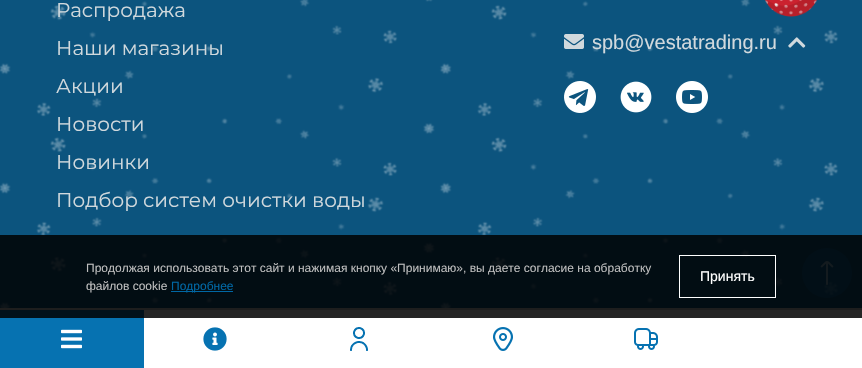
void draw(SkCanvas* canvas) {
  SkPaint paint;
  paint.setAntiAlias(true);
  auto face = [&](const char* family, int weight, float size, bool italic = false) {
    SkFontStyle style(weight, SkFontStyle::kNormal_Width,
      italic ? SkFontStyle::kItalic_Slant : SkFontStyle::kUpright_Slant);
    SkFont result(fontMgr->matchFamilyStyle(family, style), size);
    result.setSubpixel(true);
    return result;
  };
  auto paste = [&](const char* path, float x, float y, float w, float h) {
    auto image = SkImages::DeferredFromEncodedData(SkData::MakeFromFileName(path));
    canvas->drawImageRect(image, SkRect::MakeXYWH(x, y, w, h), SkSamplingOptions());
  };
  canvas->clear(0xffffffff);
  paste("img/1.png", 0, 0, 862, 308);
  paste("img/2.png", 564, 34, 20, 15);
  paste("img/3.png", 788, 37, 18, 11);
  paste("img/4.png", 564, 81, 32, 32);
  paste("img/5.png", 620, 81, 32, 32);
  paste("img/6.png", 676, 81, 32, 32);
  paste("img/7.png", 764, 0, 54, 17);
  paint.setColor(0x800672b1);
  canvas->drawCircle(827, 273, 25, paint);
  paste("img/8.png", 820, 261, 14, 24);
  {
    const struct { float x, y, w, h; SkColor color; } items[] = {
      {0, 308, 862, 2, 0xffc5c5c5},
      {0, 310, 144, 58, 0xff0672b1},
      {0, 235, 862, 83, 0xd9000000},
      {171, 291, 62, 1, 0xff0067a4},
    };
    for (auto [x, y, w, h, color] : items) {
      paint.setColor(color);
      canvas->drawRect(SkRect::MakeXYWH(x, y, w, h), paint);
    }
  }
  paint.setStroke(true);
  paint.setStrokeWidth(1);
  paint.setColor(0xffffffff);
  canvas->drawRect(SkRect::MakeXYWH(679.5f, 255.5f, 96, 42), paint);
  paste("img/9.png", 61, 329, 21, 20);
  paste("img/10.png", 203, 327, 24, 24);
  paste("img/11.png", 350, 327, 18, 24);
  paste("img/12.png", 493, 327, 20, 24);
  paste("img/13.png", 634, 328, 24, 22);
  auto f0 = face("Montserrat", 400, 20);
  paint.setStroke(false);
  paint.setColor(0xffd1d9dd);
  {
    const struct { const char* s; float x, y; } items[] = {
      {"Распродажа", 56, 17},
      {"Наши магазины", 56, 55},
      {"Акции", 56, 93},
      {"Новости", 56, 131},
      {"Новинки", 56, 169},
      {"Подбор систем очистки воды", 56, 207},
    };
    for (auto [s, x, y] : items) {
      canvas->drawString(s, x, y, f0, paint);
    }
  }
  auto f1 = face("Liberation Sans", 400, 20);
  canvas->drawString("spb@vestatrading.ru", 592, 49, f1, paint);
  auto f2 = face("Liberation Sans", 400, 12);
  paint.setColor(0xffbebebe);
  canvas->drawString("Продолжая использовать этот сайт и нажимая кнопку «Принимаю», вы даете согласие на обработку", 86, 272, f2, paint);
  canvas->drawString("файлов cookie", 86, 290, f2, paint);
  paint.setColor(0xff0067a4);
  canvas->drawString("Подробнее", 171, 290, f2, paint);
  auto f3 = face("Liberation Sans", 400, 14);
  paint.setColor(0xffffffff);
  canvas->drawString("Принять", 700, 281, f3, paint);
}
